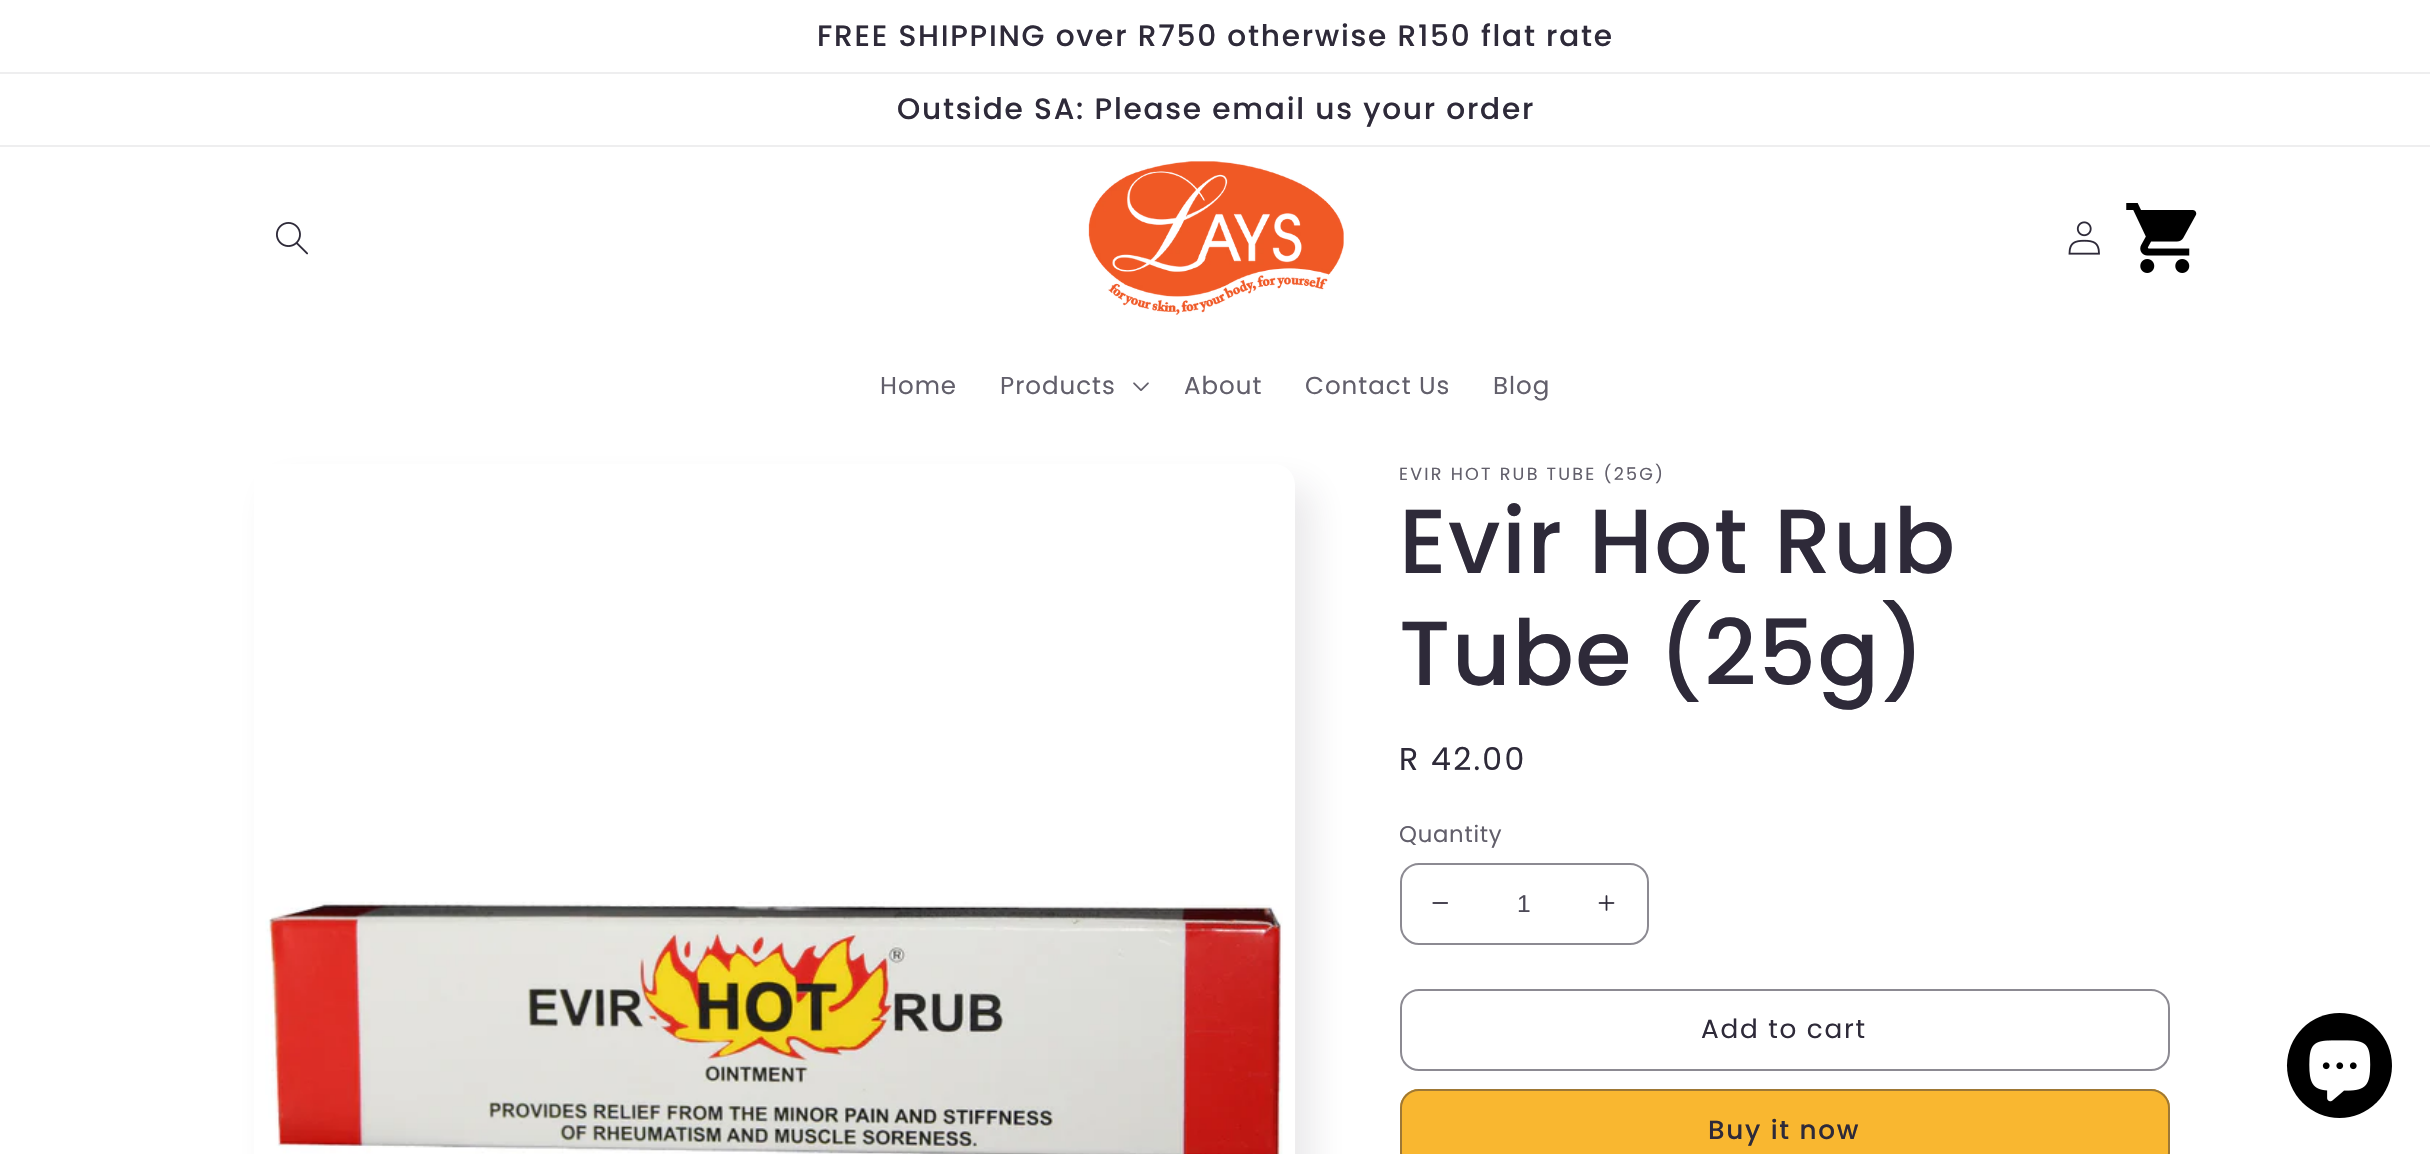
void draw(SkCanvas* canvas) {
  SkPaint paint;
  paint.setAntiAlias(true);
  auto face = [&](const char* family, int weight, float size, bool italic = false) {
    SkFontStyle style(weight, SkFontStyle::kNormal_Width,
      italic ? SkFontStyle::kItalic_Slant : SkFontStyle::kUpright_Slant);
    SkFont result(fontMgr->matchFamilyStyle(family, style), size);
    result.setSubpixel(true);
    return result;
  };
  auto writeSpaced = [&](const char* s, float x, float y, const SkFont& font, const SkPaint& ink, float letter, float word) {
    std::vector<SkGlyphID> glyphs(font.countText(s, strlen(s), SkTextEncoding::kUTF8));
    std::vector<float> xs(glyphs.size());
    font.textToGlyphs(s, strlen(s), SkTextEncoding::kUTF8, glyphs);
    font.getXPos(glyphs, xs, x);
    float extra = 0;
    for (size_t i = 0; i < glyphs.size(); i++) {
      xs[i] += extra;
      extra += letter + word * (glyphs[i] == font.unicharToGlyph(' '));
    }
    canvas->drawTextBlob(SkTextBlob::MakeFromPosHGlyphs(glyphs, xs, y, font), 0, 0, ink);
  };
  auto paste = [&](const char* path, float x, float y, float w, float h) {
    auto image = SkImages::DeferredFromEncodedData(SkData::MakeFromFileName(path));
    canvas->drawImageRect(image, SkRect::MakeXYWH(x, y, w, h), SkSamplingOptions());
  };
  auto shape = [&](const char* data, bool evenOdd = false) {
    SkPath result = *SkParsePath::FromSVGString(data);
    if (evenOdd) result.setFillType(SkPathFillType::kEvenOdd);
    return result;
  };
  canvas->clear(0xffffffff);
  paint.setColor(0xffeeeeef);
  canvas->drawRect(SkRect::MakeXYWH(0, 72, 2430, 2), paint);
  canvas->drawRect(SkRect::MakeXYWH(0, 145, 2430, 2), paint);
  paste("img/1.png", 276, 222, 32, 33);
  paste("img/2.png", 1088, 161, 256, 154);
  paste("img/3.png", 2068, 221, 32, 34);
  paste("img/4.png", 2126, 203, 71, 70);
  paste("img/5.png", 1133, 382, 16, 9);
  canvas->save();
  canvas->clipPath(shape("M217 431H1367V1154H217ZM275 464H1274C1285.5 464 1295 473.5 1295 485V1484C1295 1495.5 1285.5 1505 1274 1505H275C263.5 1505 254 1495.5 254 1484V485C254 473.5 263.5 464 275 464Z", true), true);
  paint.setColor(0x1a2e2a39);
  paint.setMaskFilter(SkMaskFilter::MakeBlur(kNormal_SkBlurStyle, 17.5f));
  canvas->drawRoundRect(SkRect::MakeXYWH(271, 485, 1042, 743), 21, 21, paint);
  paint.setMaskFilter(nullptr);
  canvas->restore();
  paste("img/6.png", 265, 901, 1018, 253);
  paste("img/7.png", 1432, 902, 16, 2);
  paste("img/8.png", 1598, 895, 17, 16);
  paint.setStroke(true);
  paint.setStrokeWidth(2);
  paint.setColor(0xff8c8a92);
  canvas->drawRoundRect(SkRect::MakeXYWH(1401, 864, 247, 80), 18, 18, paint);
  canvas->drawRoundRect(SkRect::MakeXYWH(1401, 990, 768, 80), 18, 18, paint);
  paint.setStroke(false);
  paint.setColor(0xfff9b730);
  canvas->drawRoundRect(SkRect::MakeXYWH(1400, 1089, 770, 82), 19, 19, paint);
  paint.setStroke(true);
  canvas->drawRoundRect(SkRect::MakeXYWH(1401, 1090, 768, 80), 18, 18, paint);
  paint.setColor(0x732e2a39);
  canvas->drawRoundRect(SkRect::MakeXYWH(1401, 1090, 768, 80), 18, 18, paint);
  paint.setStroke(false);
  paint.setColor(0xff000000);
  canvas->drawCircle(2339.5f, 1065.5f, 52.5f, paint);
  paste("img/9.png", 2309, 1040, 62, 62);
  auto f0 = face("Poppins", 500, 29.6f);
  paint.setColor(0xff2e2a39);
  writeSpaced("FREE SHIPPING over R750 otherwise R150 flat rate", 817, 46, f0, paint, 1.75f, 0);
  writeSpaced("Outside SA: Please email us your order", 897, 119, f0, paint, 1.75f, 0);
  auto f1 = face("Poppins", 400, 24.5f);
  paint.setColor(0xff625f6b);
  {
    const struct { const char* s; float x, y; } items[] = {
      {"Home", 880, 394},
      {"Products", 1000, 394},
      {"About", 1184, 394},
      {"Contact Us", 1305, 394},
      {"Blog", 1493, 394},
    };
    for (auto [s, x, y] : items) {
      writeSpaced(s, x, y, f1, paint, 1, 0);
    }
  }
  auto f2 = face("Poppins", 400, 17.5f);
  writeSpaced("EVIR HOT RUB TUBE (25G)", 1399, 480, f2, paint, 2.25f, 0);
  auto f3 = face("Poppins", 500, 91);
  paint.setColor(0xff2e2a39);
  writeSpaced("Evir Hot Rub", 1399, 573, f3, paint, 1.4f, 0);
  writeSpaced("Tube (25g)", 1399, 685, f3, paint, 1.4f, 0);
  auto f4 = face("Poppins", 400, 31.5f);
  writeSpaced("R 42.00", 1399, 770, f4, paint, 2.25f, 0);
  auto f5 = face("Poppins", 400, 22.75f);
  paint.setColor(0xff625f6b);
  writeSpaced("Quantity", 1399, 842, f5, paint, 0.75f, 0);
  auto f6 = face("Liberation Sans", 400, 24.5f);
  paint.setColor(0xff4d4a57);
  canvas->drawString("1", 1517, 912, f6, paint);
  auto f7 = face("Poppins", 400, 26.25f);
  paint.setColor(0xff2e2a39);
  writeSpaced("Add to cart", 1701, 1038, f7, paint, 1.75f, 0);
  auto f8 = face("Poppins", 500, 26.25f);
  writeSpaced("Buy it now", 1708, 1139, f8, paint, 1.75f, 0);
}
